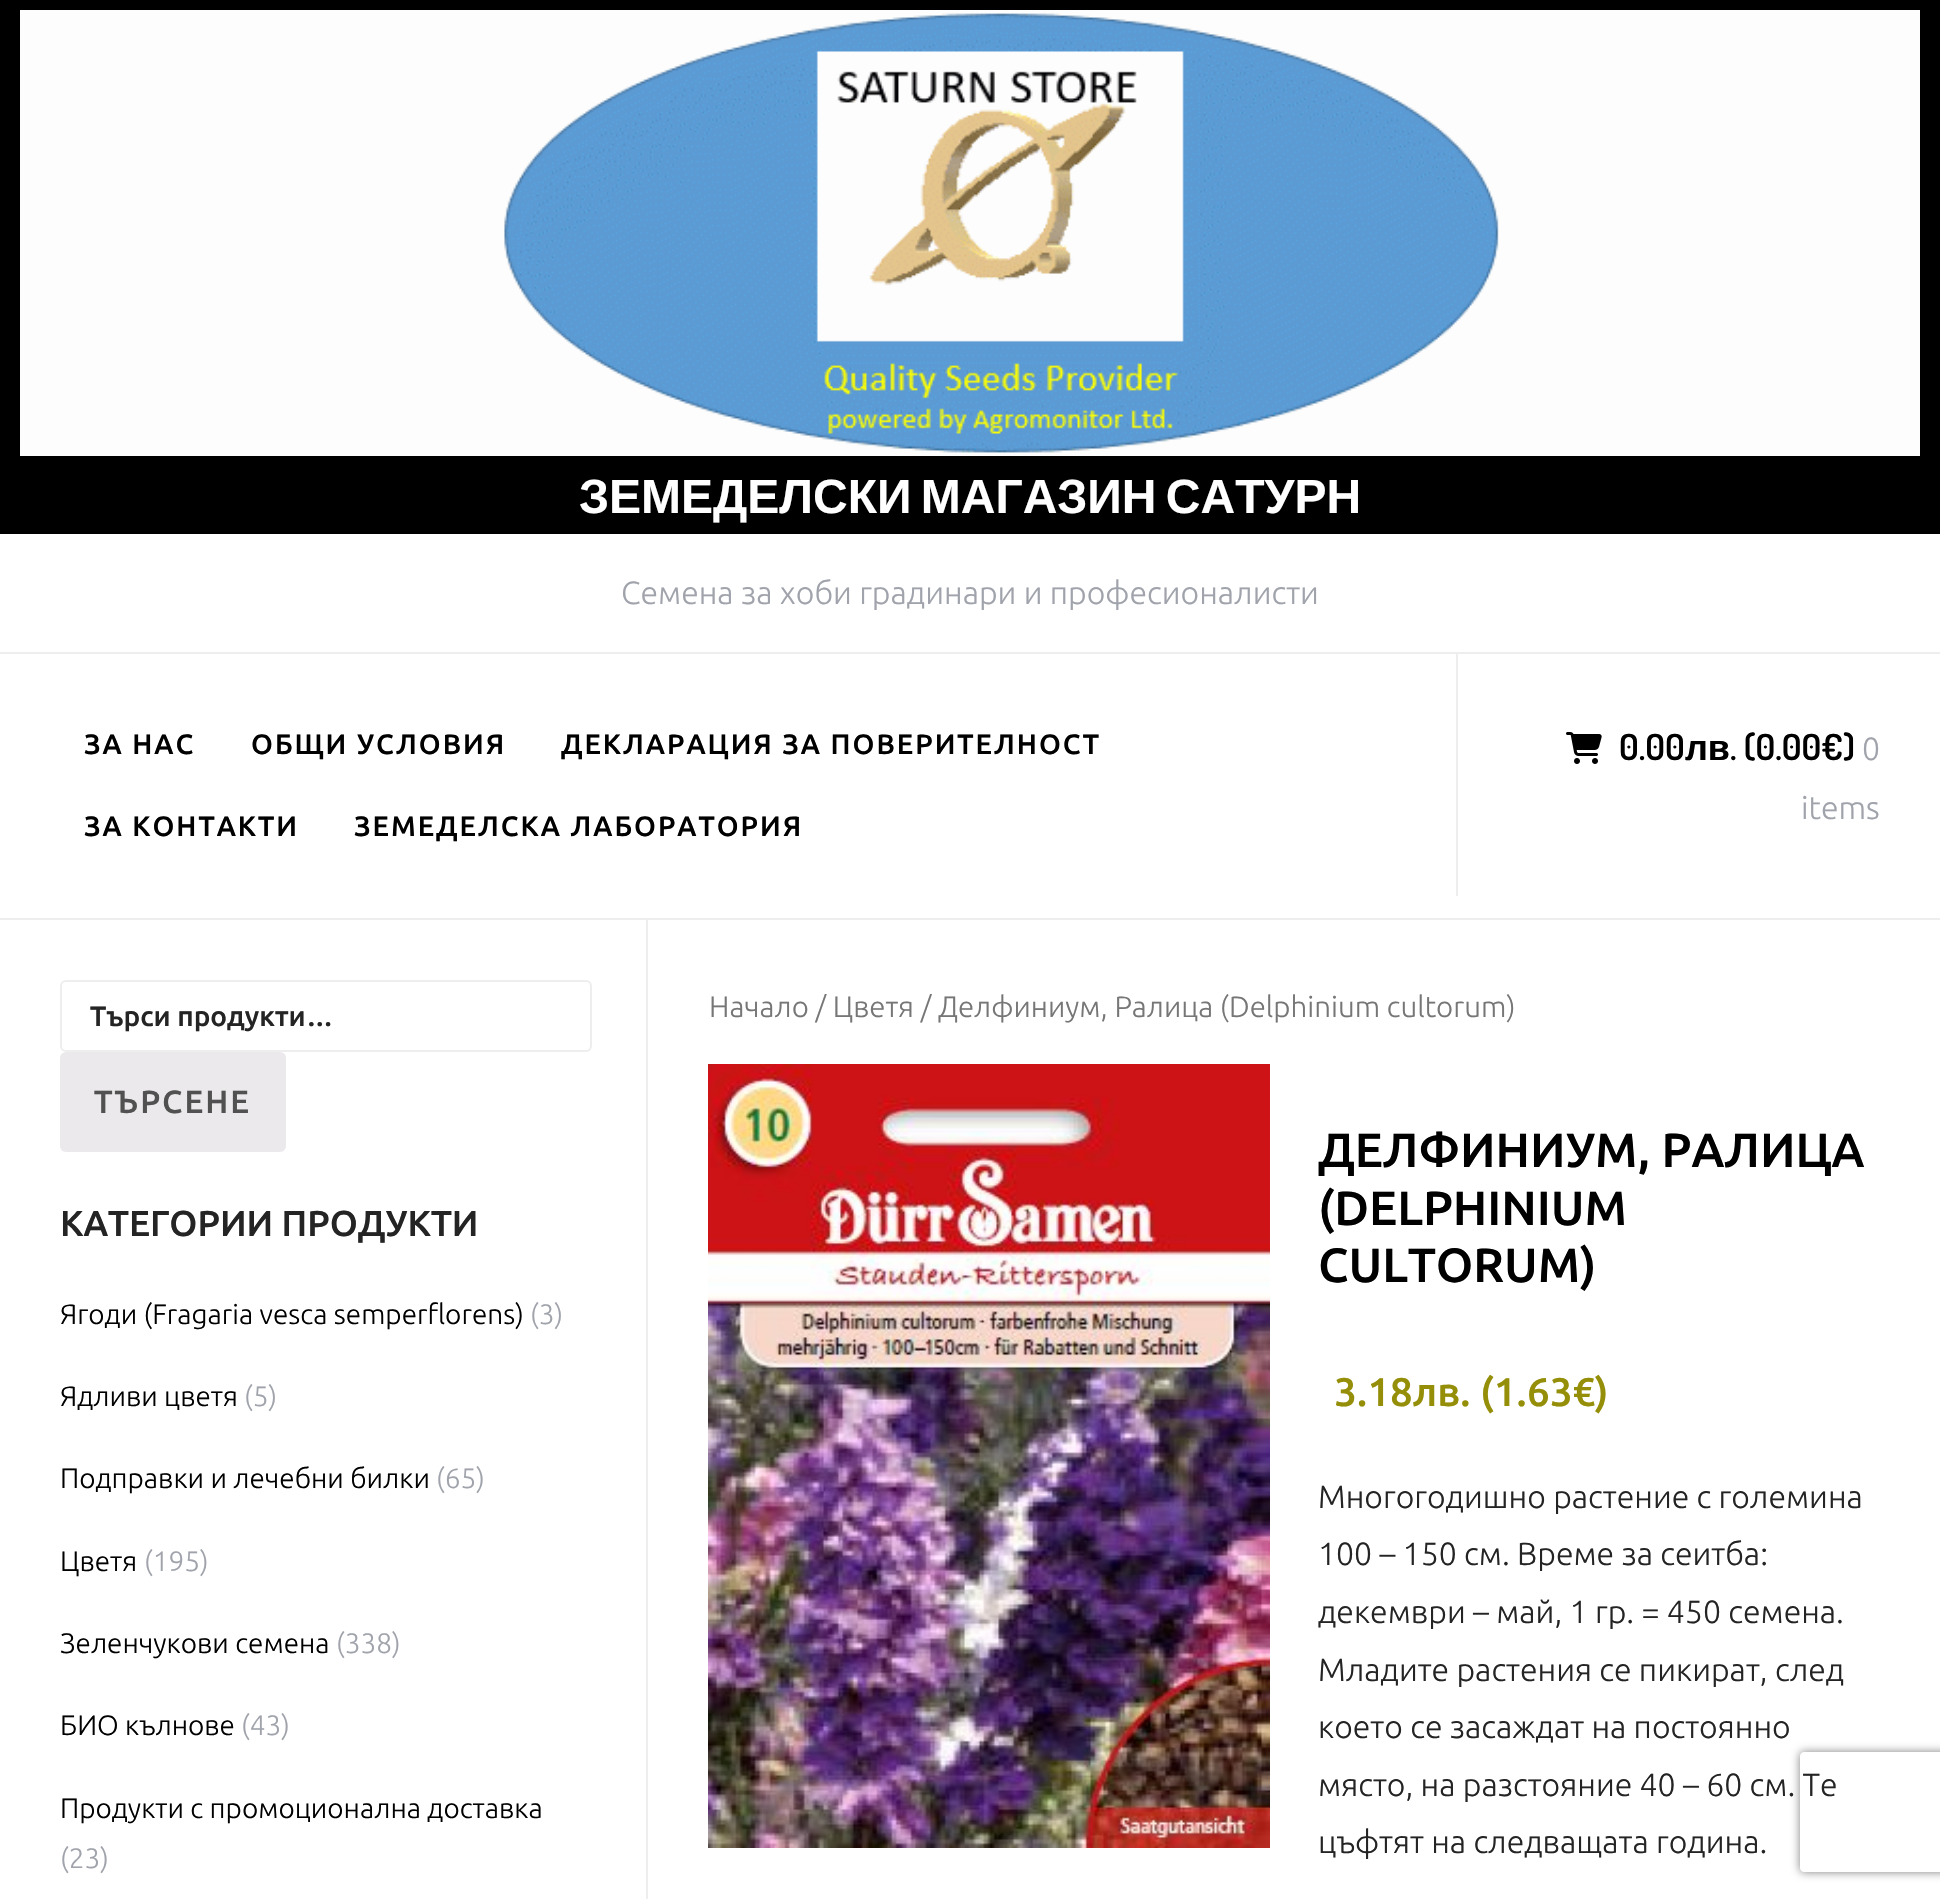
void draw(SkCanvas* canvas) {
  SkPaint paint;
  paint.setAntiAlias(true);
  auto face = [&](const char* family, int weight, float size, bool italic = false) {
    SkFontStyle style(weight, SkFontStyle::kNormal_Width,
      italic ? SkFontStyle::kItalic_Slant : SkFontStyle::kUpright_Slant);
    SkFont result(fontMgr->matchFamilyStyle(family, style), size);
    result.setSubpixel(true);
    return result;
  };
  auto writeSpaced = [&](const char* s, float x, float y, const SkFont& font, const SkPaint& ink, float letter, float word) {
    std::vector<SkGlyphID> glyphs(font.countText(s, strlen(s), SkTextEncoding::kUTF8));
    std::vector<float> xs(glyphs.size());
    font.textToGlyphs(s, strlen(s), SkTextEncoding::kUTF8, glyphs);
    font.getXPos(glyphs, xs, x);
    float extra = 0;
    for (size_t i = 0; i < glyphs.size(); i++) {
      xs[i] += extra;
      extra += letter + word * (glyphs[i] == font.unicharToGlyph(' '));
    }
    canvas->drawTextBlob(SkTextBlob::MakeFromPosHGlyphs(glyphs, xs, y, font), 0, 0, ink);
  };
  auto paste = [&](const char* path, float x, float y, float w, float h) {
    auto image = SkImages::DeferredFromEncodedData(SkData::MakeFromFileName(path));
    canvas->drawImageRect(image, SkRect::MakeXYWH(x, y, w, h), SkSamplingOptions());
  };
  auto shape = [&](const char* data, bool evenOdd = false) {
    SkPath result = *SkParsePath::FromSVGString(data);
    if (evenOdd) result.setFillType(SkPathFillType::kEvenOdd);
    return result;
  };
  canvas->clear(0xffffffff);
  {
    const struct { float x, y, w, h; SkColor color; } items[] = {
      {0, 918, 1940, 2, 0xffeeeeee},
      {0, 652, 1940, 2, 0xffeeeeee},
      {0, 0, 1940, 534, 0xff000000},
    };
    for (auto [x, y, w, h, color] : items) {
      paint.setColor(color);
      canvas->drawRect(SkRect::MakeXYWH(x, y, w, h), paint);
    }
  }
  paste("img/1.png", 20, 10, 1900, 446);
  paint.setColor(0xffeeeeee);
  canvas->drawRect(SkRect::MakeXYWH(1456, 654, 2, 242), paint);
  paste("img/2.png", 1566, 732, 36, 32);
  paint.setStroke(true);
  paint.setStrokeWidth(2);
  canvas->drawRoundRect(SkRect::MakeXYWH(61, 981, 530, 70), 5, 5, paint);
  paint.setStroke(false);
  paint.setColor(0xffebe9eb);
  canvas->drawRoundRect(SkRect::MakeXYWH(60, 1052, 226, 100), 6, 6, paint);
  paint.setColor(0xffeeeeee);
  canvas->drawRect(SkRect::MakeXYWH(646, 920, 2, 979), paint);
  paste("img/3.png", 708, 1064, 562, 784);
  canvas->save();
  canvas->clipPath(shape("M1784 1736H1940V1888H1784ZM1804 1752H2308C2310 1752 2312 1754 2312 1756V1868C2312 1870 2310 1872 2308 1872H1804C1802 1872 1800 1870 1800 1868V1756C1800 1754 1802 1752 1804 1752Z", true), true);
  paint.setColor(0xff808080);
  paint.setMaskFilter(SkMaskFilter::MakeBlur(kNormal_SkBlurStyle, 5));
  canvas->drawRoundRect(SkRect::MakeXYWH(1800, 1752, 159, 120), 4, 4, paint);
  paint.setMaskFilter(nullptr);
  canvas->restore();
  auto f0 = face("Liberation Sans", 700, 48);
  paint.setColor(0xffffffff);
  writeSpaced("ЗЕМЕДЕЛСКИ МАГАЗИН САТУРН", 579, 513, f0, paint, 0, -4);
  auto f1 = face("Ubuntu", 300, 32);
  paint.setColor(0xffa0a3ab);
  canvas->drawString("Семена за хоби градинари и професионалисти", 621, 604, f1, paint);
  auto f2 = face("Ubuntu", 500, 28);
  paint.setColor(0xff000000);
  {
    const struct { const char* s; float x, y; } items[] = {
      {"ЗА НАС", 84, 754},
      {"ОБЩИ УСЛОВИЯ", 251, 754},
      {"ДЕКЛАРАЦИЯ ЗА ПОВЕРИТЕЛНОСТ", 561, 754},
      {"ЗА КОНТАКТИ", 84, 836},
      {"ЗЕМЕДЕЛСКА ЛАБОРАТОРИЯ", 354, 836},
    };
    for (auto [s, x, y] : items) {
      writeSpaced(s, x, y, f2, paint, 2, 0);
    }
  }
  auto f3 = face("Dosis", 600, 36);
  canvas->drawString("0.00", 1619, 760, f3, paint);
  auto f4 = face("Liberation Sans", 700, 36);
  canvas->drawString("лв", 1685, 760, f4, paint);
  canvas->drawString(". (0.00€)", 1730, 760, f3, paint);
  paint.setColor(0xffa0a3ab);
  canvas->drawString("0", 1862, 760, f1, paint);
  canvas->drawString("items", 1801, 819, f1, paint);
  paint.setColor(0xff242424);
  canvas->drawString("Търси продукти…", 90, 1026, f2, paint);
  auto f5 = face("Ubuntu", 500, 32);
  paint.setColor(0xff515151);
  writeSpaced("ТЪРСЕНЕ", 94, 1113, f5, paint, 2, 0);
  auto f6 = face("Ubuntu", 500, 36);
  paint.setColor(0xff242424);
  canvas->drawString("КАТЕГОРИИ ПРОДУКТИ", 60, 1236, f6, paint);
  auto f7 = face("Ubuntu", 300, 28);
  paint.setColor(0xff000000);
  canvas->drawString("Ягоди (Fragaria vesca semperflorens)", 60, 1324, f7, paint);
  paint.setColor(0xffa0a3ab);
  canvas->drawString("(3)", 530, 1324, f7, paint);
  paint.setColor(0xff000000);
  canvas->drawString("Ядливи цветя", 60, 1406, f7, paint);
  paint.setColor(0xffa0a3ab);
  canvas->drawString("(5)", 244, 1406, f7, paint);
  paint.setColor(0xff000000);
  canvas->drawString("Подправки и лечебни билки", 60, 1488, f7, paint);
  paint.setColor(0xffa0a3ab);
  canvas->drawString("(65)", 436, 1488, f7, paint);
  paint.setColor(0xff000000);
  canvas->drawString("Цветя", 60, 1571, f7, paint);
  paint.setColor(0xffa0a3ab);
  canvas->drawString("(195)", 144, 1571, f7, paint);
  paint.setColor(0xff000000);
  canvas->drawString("Зеленчукови семена", 60, 1653, f7, paint);
  paint.setColor(0xffa0a3ab);
  canvas->drawString("(338)", 336, 1653, f7, paint);
  paint.setColor(0xff000000);
  canvas->drawString("БИО кълнове", 60, 1735, f7, paint);
  paint.setColor(0xffa0a3ab);
  canvas->drawString("(43)", 241, 1735, f7, paint);
  paint.setColor(0xff000000);
  canvas->drawString("Продукти с промоционална доставка", 60, 1818, f7, paint);
  paint.setColor(0xffa0a3ab);
  canvas->drawString("(23)", 60, 1868, f7, paint);
  auto f8 = face("Ubuntu", 300, 29.45f);
  paint.setColor(0xff767676);
  canvas->drawString("Начало / Цветя / Делфиниум, Ралица (Delphinium cultorum)", 709, 1017, f8, paint);
  auto f9 = face("Ubuntu", 500, 48);
  paint.setColor(0xff000000);
  {
    const struct { const char* s; float x, y; } items[] = {
      {"ДЕЛФИНИУМ, РАЛИЦА", 1318, 1167},
      {"(DELPHINIUM", 1318, 1225},
      {"CULTORUM)", 1318, 1282},
    };
    for (auto [s, x, y] : items) {
      canvas->drawString(s, x, y, f9, paint);
    }
  }
  auto f10 = face("Ubuntu", 500, 40);
  paint.setColor(0xff958e09);
  canvas->drawString("3.18лв. (1.63€)", 1334, 1406, f10, paint);
  paint.setColor(0xff242424);
  {
    const struct { const char* s; float x, y; } items[] = {
      {"Многогодишно растение с големина", 1318, 1508},
      {"100 – 150 см. Време за сеитба:", 1318, 1565},
      {"декември – май, 1 гр. = 450 семена.", 1318, 1623},
      {"Младите растения се пикират, след", 1318, 1681},
      {"което се засаждат на постоянно", 1318, 1738},
      {"място, на разстояние 40 – 60 см. Те", 1318, 1796},
      {"цъфтят на следващата година.", 1318, 1853},
    };
    for (auto [s, x, y] : items) {
      canvas->drawString(s, x, y, f1, paint);
    }
  }
}
